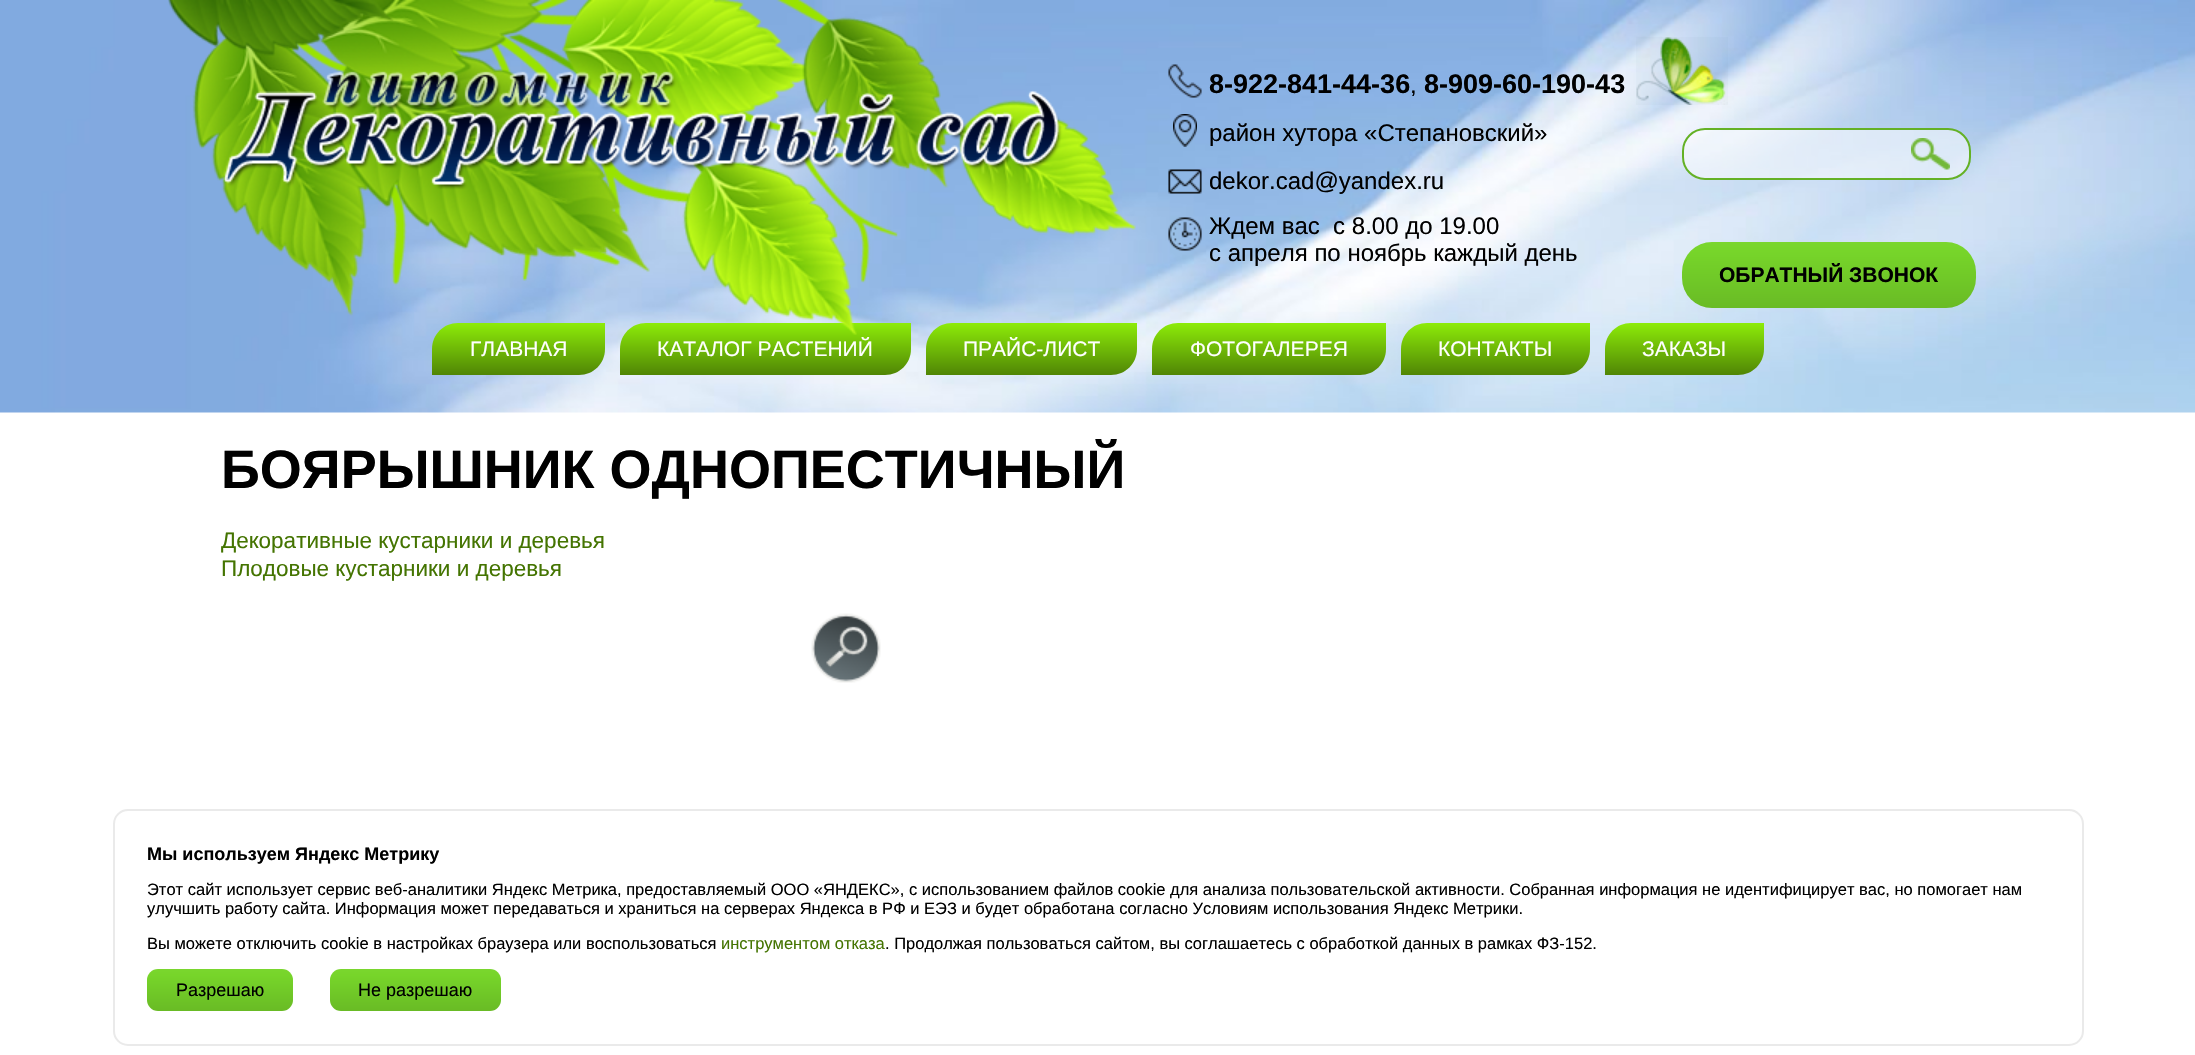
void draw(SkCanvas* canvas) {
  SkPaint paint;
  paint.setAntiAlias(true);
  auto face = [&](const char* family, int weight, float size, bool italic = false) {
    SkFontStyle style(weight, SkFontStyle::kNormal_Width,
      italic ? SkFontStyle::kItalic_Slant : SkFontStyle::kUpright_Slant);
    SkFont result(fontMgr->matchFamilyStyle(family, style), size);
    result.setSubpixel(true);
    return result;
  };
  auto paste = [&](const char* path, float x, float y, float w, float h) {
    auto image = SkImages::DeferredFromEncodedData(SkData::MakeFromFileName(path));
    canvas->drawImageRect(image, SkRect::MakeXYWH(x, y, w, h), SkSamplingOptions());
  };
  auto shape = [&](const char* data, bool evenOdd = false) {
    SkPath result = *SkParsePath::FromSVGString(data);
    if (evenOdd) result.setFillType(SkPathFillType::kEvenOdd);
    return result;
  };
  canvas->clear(0xffffffff);
  paste("img/1.png", 0, 0, 2195, 413);
  {
    const SkColor colors[] = {0xff8dec09, 0xff508505};
    const float stops[] = {0, 1};
    const SkPoint ends[] = {{518, 323}, {518, 375}};
    paint.setShader(SkGradientShader::MakeLinear(ends, colors, stops, 2, SkTileMode::kClamp));
    paint.setAlpha(255);
  }
  canvas->drawPath(shape("M458 323H605V349C605 363.5 593.5 375 579 375H432V349C432 334.5 443.5 323 458 323Z"), paint);
  {
    const SkColor colors[] = {0xff8dec09, 0xff508505};
    const float stops[] = {0, 1};
    const SkPoint ends[] = {{765, 323}, {765, 375}};
    paint.setShader(SkGradientShader::MakeLinear(ends, colors, stops, 2, SkTileMode::kClamp));
    paint.setAlpha(255);
  }
  canvas->drawPath(shape("M646 323H911V349C911 363.5 899.5 375 885 375H620V349C620 334.5 631.5 323 646 323Z"), paint);
  {
    const SkColor colors[] = {0xff8dec09, 0xff508505};
    const float stops[] = {0, 1};
    const SkPoint ends[] = {{1031, 323}, {1031, 375}};
    paint.setShader(SkGradientShader::MakeLinear(ends, colors, stops, 2, SkTileMode::kClamp));
    paint.setAlpha(255);
  }
  canvas->drawPath(shape("M952 323H1137V349C1137 363.5 1125.5 375 1111 375H926V349C926 334.5 937.5 323 952 323Z"), paint);
  paste("img/2.png", 168, 0, 968, 335);
  paste("img/3.png", 1168, 64, 34, 34);
  paste("img/4.png", 1173, 114, 24, 33);
  paste("img/5.png", 1168, 169, 34, 25);
  paste("img/6.png", 1168, 217, 34, 34);
  paste("img/7.png", 1636, 37, 92, 68);
  paint.setShader(nullptr);
  paint.setColor(0x87ffffff);
  canvas->drawRoundRect(SkRect::MakeXYWH(1683, 129, 287, 50), 22, 22, paint);
  paint.setStroke(true);
  paint.setStrokeWidth(2);
  paint.setColor(0xff64b125);
  canvas->drawRoundRect(SkRect::MakeXYWH(1683, 129, 287, 50), 22, 22, paint);
  paste("img/8.png", 1911, 138, 39, 32);
  paint.setStroke(false);
  {
    const SkColor colors[] = {0xff7ad62e, 0xff77d52a, 0xff69bb25};
    const float stops[] = {0, 0.14f, 1};
    const SkPoint ends[] = {{1829, 242}, {1829, 308}};
    paint.setShader(SkGradientShader::MakeLinear(ends, colors, stops, 3, SkTileMode::kClamp));
    paint.setAlpha(255);
  }
  canvas->drawRoundRect(SkRect::MakeXYWH(1682, 242, 294, 66), 30, 30, paint);
  {
    const SkColor colors[] = {0xff8dec09, 0xff508505};
    const float stops[] = {0, 1};
    const SkPoint ends[] = {{1269, 323}, {1269, 375}};
    paint.setShader(SkGradientShader::MakeLinear(ends, colors, stops, 2, SkTileMode::kClamp));
    paint.setAlpha(255);
  }
  canvas->drawPath(shape("M1178 323H1386V349C1386 363.5 1374.5 375 1360 375H1152V349C1152 334.5 1163.5 323 1178 323Z"), paint);
  {
    const SkColor colors[] = {0xff8dec09, 0xff508505};
    const float stops[] = {0, 1};
    const SkPoint ends[] = {{1496, 323}, {1496, 375}};
    paint.setShader(SkGradientShader::MakeLinear(ends, colors, stops, 2, SkTileMode::kClamp));
    paint.setAlpha(255);
  }
  canvas->drawPath(shape("M1427 323H1590V349C1590 363.5 1578.5 375 1564 375H1401V349C1401 334.5 1412.5 323 1427 323Z"), paint);
  {
    const SkColor colors[] = {0xff8dec09, 0xff508505};
    const float stops[] = {0, 1};
    const SkPoint ends[] = {{1685, 323}, {1685, 375}};
    paint.setShader(SkGradientShader::MakeLinear(ends, colors, stops, 2, SkTileMode::kClamp));
    paint.setAlpha(255);
  }
  canvas->drawPath(shape("M1631 323H1764V349C1764 363.5 1752.5 375 1738 375H1605V349C1605 334.5 1616.5 323 1631 323Z"), paint);
  paste("img/9.png", 811, 613, 70, 70);
  paint.setStroke(true);
  paint.setShader(nullptr);
  paint.setColor(0xffeaeaea);
  canvas->drawRoundRect(SkRect::MakeXYWH(114, 810, 1969, 235), 14, 14, paint);
  paint.setStroke(false);
  {
    const SkColor colors[] = {0xff7ad62e, 0xff77d52a, 0xff69bb25};
    const float stops[] = {0, 0.14f, 1};
    const SkPoint ends[] = {{220, 969}, {220, 1011}};
    paint.setShader(SkGradientShader::MakeLinear(ends, colors, stops, 3, SkTileMode::kClamp));
    paint.setAlpha(255);
  }
  canvas->drawRoundRect(SkRect::MakeXYWH(147, 969, 146, 42), 11, 11, paint);
  {
    const SkColor colors[] = {0xff7ad62e, 0xff77d52a, 0xff69bb25};
    const float stops[] = {0, 0.14f, 1};
    const SkPoint ends[] = {{416, 969}, {416, 1011}};
    paint.setShader(SkGradientShader::MakeLinear(ends, colors, stops, 3, SkTileMode::kClamp));
    paint.setAlpha(255);
  }
  canvas->drawRoundRect(SkRect::MakeXYWH(330, 969, 171, 42), 11, 11, paint);
  auto f0 = face("Liberation Sans", 700, 27);
  paint.setShader(nullptr);
  paint.setColor(0xff000000);
  canvas->drawString("8-922-841-44-36", 1209, 93, f0, paint);
  auto f1 = face("Liberation Sans", 400, 24);
  canvas->drawString(",", 1410, 93, f1, paint);
  canvas->drawString("8-909-60-190-43", 1424, 93, f0, paint);
  {
    const struct { const char* s; float x, y; } items[] = {
      {"район хутора «Степановский»", 1209, 141},
      {"dekor.cad@yandex.ru", 1209, 189},
      {"Ждем вас  с 8.00 до 19.00", 1209, 234},
      {"с апреля по ноябрь каждый день", 1209, 261},
    };
    for (auto [s, x, y] : items) {
      canvas->drawString(s, x, y, f1, paint);
    }
  }
  auto f2 = face("Liberation Sans", 700, 21);
  canvas->drawString("ОБРАТНЫЙ ЗВОНОК", 1719, 282, f2, paint);
  auto f3 = face("Liberation Sans", 400, 21);
  paint.setColor(0xffffffff);
  {
    const struct { const char* s; float x, y; } items[] = {
      {"ГЛАВНАЯ", 470, 356},
      {"КАТАЛОГ РАСТЕНИЙ", 657, 356},
      {"ПРАЙС-ЛИСТ", 963, 356},
      {"ФОТОГАЛЕРЕЯ", 1190, 356},
      {"КОНТАКТЫ", 1438, 356},
      {"ЗАКАЗЫ", 1642, 356},
    };
    for (auto [s, x, y] : items) {
      canvas->drawString(s, x, y, f3, paint);
    }
  }
  auto f4 = face("Liberation Sans", 700, 54);
  paint.setColor(0xff000000);
  canvas->drawString("БОЯРЫШНИК ОДНОПЕСТИЧНЫЙ", 221, 488, f4, paint);
  auto f5 = face("Liberation Sans", 400, 22.5f);
  paint.setColor(0xff447401);
  canvas->drawString("Декоративные кустарники и деревья", 221, 548, f5, paint);
  canvas->drawString("Плодовые кустарники и деревья", 221, 576, f5, paint);
  auto f6 = face("Liberation Sans", 700, 18);
  paint.setColor(0xff000000);
  canvas->drawString("Мы используем Яндекс Метрику", 147, 860, f6, paint);
  auto f7 = face("Liberation Sans", 400, 16.5f);
  {
    const struct { const char* s; float x, y; } items[] = {
      {"Этот сайт использует сервис веб-аналитики Яндекс Метрика, предоставляемый ООО «ЯНДЕКС», с использованием файлов cookie для анализа пользовательской активности. Собранная информация не идентифицирует вас, но помогает нам", 147, 895},
      {"улучшить работу сайта. Информация может передаваться и храниться на серверах Яндекса в РФ и ЕЭЗ и будет обработана согласно Условиям использования Яндекс Метрики.", 147, 914},
      {"Вы можете отключить cookie в настройках браузера или воспользоваться", 147, 949},
    };
    for (auto [s, x, y] : items) {
      canvas->drawString(s, x, y, f7, paint);
    }
  }
  paint.setColor(0xff447401);
  canvas->drawString("инструментом отказа", 721, 949, f7, paint);
  paint.setColor(0xff000000);
  canvas->drawString(". Продолжая пользоваться сайтом, вы соглашаетесь с обработкой данных в рамках ФЗ-152.", 885, 949, f7, paint);
  auto f8 = face("Liberation Sans", 400, 18);
  canvas->drawString("Разрешаю", 176, 996, f8, paint);
  canvas->drawString("Не разрешаю", 358, 996, f8, paint);
}
